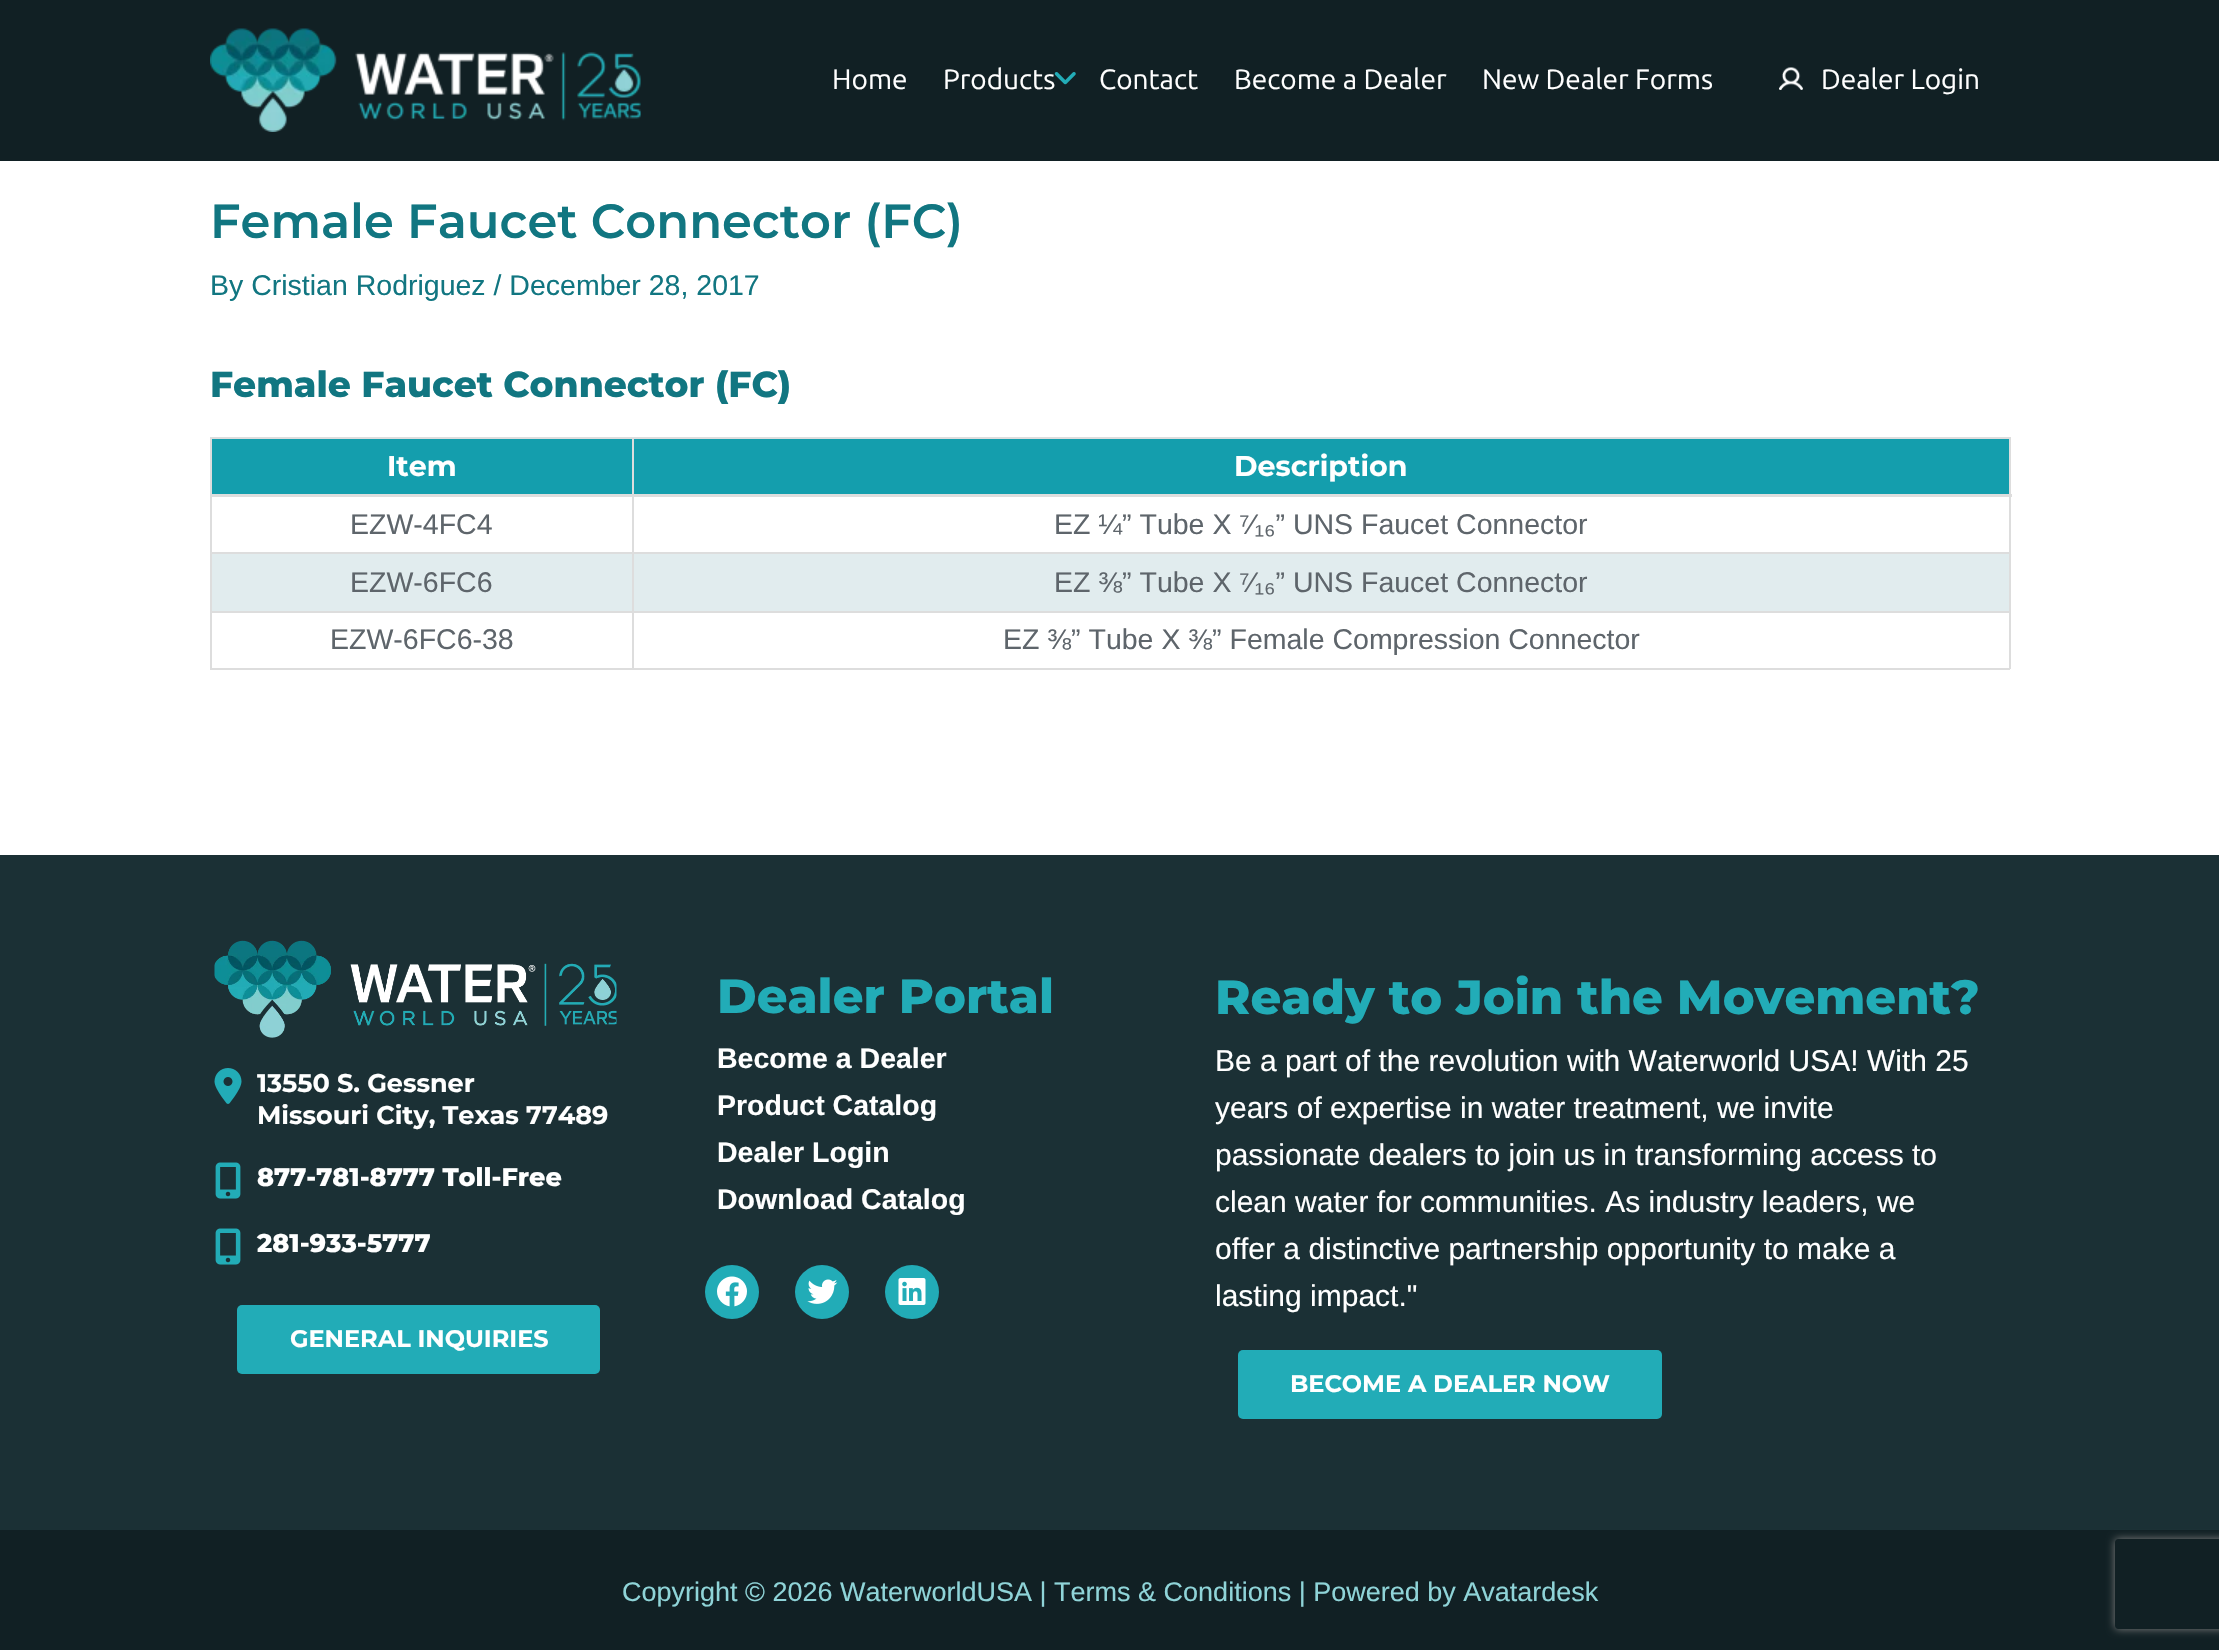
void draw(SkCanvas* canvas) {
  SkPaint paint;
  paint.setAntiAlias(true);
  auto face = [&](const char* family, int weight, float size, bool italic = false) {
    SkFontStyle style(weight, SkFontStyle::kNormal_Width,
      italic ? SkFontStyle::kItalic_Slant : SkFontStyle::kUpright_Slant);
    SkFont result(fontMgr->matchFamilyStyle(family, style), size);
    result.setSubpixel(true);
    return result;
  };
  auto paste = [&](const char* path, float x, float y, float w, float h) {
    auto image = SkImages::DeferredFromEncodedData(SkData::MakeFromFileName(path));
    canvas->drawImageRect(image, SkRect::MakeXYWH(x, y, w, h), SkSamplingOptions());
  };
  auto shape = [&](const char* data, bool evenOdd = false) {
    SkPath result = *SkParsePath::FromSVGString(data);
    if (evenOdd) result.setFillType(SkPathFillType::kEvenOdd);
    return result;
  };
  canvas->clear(0xffffffff);
  paint.setColor(0xff112024);
  canvas->drawRect(SkRect::MakeXYWH(0, 0, 2219, 161), paint);
  paste("img/1.png", 210, 28, 431, 104);
  paste("img/3.png", 1779, 67, 24, 23);
  {
    const struct { float x, y, w, h; SkColor color; } items[] = {
      {210, 437, 1800, 2, 0xffdddddd},
      {2009, 437, 2, 232, 0xffdddddd},
      {210, 668, 1800, 2, 0xffdddddd},
      {210, 437, 2, 232, 0xffdddddd},
      {212, 439, 420, 55, 0xff149ead},
      {634, 439, 1375, 55, 0xff149ead},
      {632, 552, 1378, 2, 0xffdddddd},
      {212, 554, 1797, 57, 0xffe1ecee},
      {632, 611, 1378, 2, 0xffdddddd},
      {632, 611, 2, 58, 0xffdddddd},
      {210, 611, 423, 2, 0xffdddddd},
      {632, 552, 2, 60, 0xffdddddd},
      {210, 552, 423, 2, 0xffdddddd},
      {632, 437, 2, 117, 0xffdddddd},
      {210, 494, 1802, 3, 0xffdddddd},
      {0, 855, 2219, 675, 0xff1b3035},
    };
    for (auto [x, y, w, h, color] : items) {
      paint.setColor(color);
      canvas->drawRect(SkRect::MakeXYWH(x, y, w, h), paint);
    }
  }
  paste("img/4.png", 214, 940, 403, 98);
  paste("img/5.png", 214, 1068, 28, 36);
  paste("img/6.png", 215, 1162, 26, 37);
  paste("img/6.png", 215, 1228, 26, 37);
  paint.setColor(0xff22acb7);
  canvas->drawRoundRect(SkRect::MakeXYWH(237, 1305, 363, 69), 5, 5, paint);
  canvas->drawCircle(732, 1292, 27, paint);
  paste("img/7.png", 717, 1276, 30, 31);
  canvas->drawCircle(822, 1292, 27, paint);
  paste("img/8.png", 807, 1279, 31, 25);
  canvas->drawCircle(912, 1292, 27, paint);
  paste("img/9.png", 898, 1278, 28, 27);
  canvas->drawRoundRect(SkRect::MakeXYWH(1238, 1350, 424, 69), 5, 5, paint);
  paint.setColor(0xff112024);
  canvas->drawRect(SkRect::MakeXYWH(0, 1530, 2219, 120), paint);
  canvas->save();
  canvas->clipPath(shape("M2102 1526H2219V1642H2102ZM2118 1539H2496C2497.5 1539 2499 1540.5 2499 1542V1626C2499 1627.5 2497.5 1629 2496 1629H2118C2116.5 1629 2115 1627.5 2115 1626V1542C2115 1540.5 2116.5 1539 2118 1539Z", true), true);
  paint.setColor(0xff808080);
  paint.setMaskFilter(SkMaskFilter::MakeBlur(kNormal_SkBlurStyle, 4));
  canvas->drawRoundRect(SkRect::MakeXYWH(2115, 1539, 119, 90), 3, 3, paint);
  paint.setMaskFilter(nullptr);
  canvas->restore();
  auto f0 = face("Ubuntu", 400, 28);
  paint.setColor(0xffffffff);
  canvas->drawString("Home", 832, 89, f0, paint);
  canvas->drawString("Products", 943, 89, f0, paint);
  paste("img/2.png", 1054, 72, 22, 13);
  {
    const struct { const char* s; float x, y; } items[] = {
      {"Contact", 1099, 89},
      {"Become a Dealer", 1234, 89},
      {"New Dealer Forms", 1482, 89},
      {"Dealer Login", 1821, 89},
    };
    for (auto [s, x, y] : items) {
      canvas->drawString(s, x, y, f0, paint);
    }
  }
  auto f1 = face("Montserrat", 600, 48);
  paint.setColor(0xff117681);
  canvas->drawString("Female Faucet Connector (FC)", 210, 238, f1, paint);
  auto f2 = face("Liberation Sans", 400, 28.5f);
  canvas->drawString("By Cristian Rodriguez / December 28, 2017", 210, 295, f2, paint);
  auto f3 = face("Montserrat", 800, 36);
  canvas->drawString("Female Faucet Connector (FC)", 210, 397, f3, paint);
  auto f4 = face("Montserrat", 700, 28.5f);
  paint.setColor(0xffffffff);
  canvas->drawString("Item", 387, 476, f4, paint);
  canvas->drawString("Description", 1234, 476, f4, paint);
  paint.setColor(0xff5e656b);
  {
    const struct { const char* s; float x, y; } items[] = {
      {"EZW-4FC4", 350, 534},
      {"EZ ¼” Tube X ⁷⁄₁₆” UNS Faucet Connector", 1054, 534},
      {"EZW-6FC6", 350, 592},
      {"EZ ⅜” Tube X ⁷⁄₁₆” UNS Faucet Connector", 1054, 592},
      {"EZW-6FC6-38", 330, 649},
      {"EZ ⅜” Tube X ⅜” Female Compression Connector", 1003, 649},
    };
    for (auto [s, x, y] : items) {
      canvas->drawString(s, x, y, f2, paint);
    }
  }
  auto f5 = face("Montserrat", 700, 25.5f);
  paint.setColor(0xffffffff);
  canvas->drawString("13550 S. Gessner", 257, 1092, f5, paint);
  canvas->drawString("Missouri City, Texas 77489", 257, 1124, f5, paint);
  auto f6 = face("Montserrat", 800, 25.5f);
  canvas->drawString("877-781-8777 Toll-Free", 257, 1186, f6, paint);
  canvas->drawString("281-933-5777", 257, 1252, f6, paint);
  auto f7 = face("Montserrat", 700, 24);
  canvas->drawString("GENERAL INQUIRIES", 290, 1347, f7, paint);
  auto f8 = face("Montserrat", 800, 48);
  paint.setColor(0xff22acb7);
  canvas->drawString("Dealer Portal", 717, 1013, f8, paint);
  auto f9 = face("Liberation Sans", 700, 28.5f);
  paint.setColor(0xffffffff);
  {
    const struct { const char* s; float x, y; } items[] = {
      {"Become a Dealer", 717, 1068},
      {"Product Catalog", 717, 1115},
      {"Dealer Login", 717, 1162},
      {"Download Catalog", 717, 1209},
    };
    for (auto [s, x, y] : items) {
      canvas->drawString(s, x, y, f9, paint);
    }
  }
  paint.setColor(0xff22acb7);
  canvas->drawString("Ready to Join the Movement?", 1215, 1014, f8, paint);
  auto f10 = face("Liberation Sans", 400, 30);
  paint.setColor(0xffffffff);
  {
    const struct { const char* s; float x, y; } items[] = {
      {"Be a part of the revolution with Waterworld USA! With 25", 1215, 1071},
      {"years of expertise in water treatment, we invite", 1215, 1118},
      {"passionate dealers to join us in transforming access to", 1215, 1165},
      {"clean water for communities. As industry leaders, we", 1215, 1212},
      {"offer a distinctive partnership opportunity to make a", 1215, 1259},
      {"lasting impact.\"", 1215, 1306},
    };
    for (auto [s, x, y] : items) {
      canvas->drawString(s, x, y, f10, paint);
    }
  }
  canvas->drawString("BECOME A DEALER NOW", 1290, 1392, f7, paint);
  auto f11 = face("Liberation Sans", 400, 27);
  paint.setColor(0xff8fd4d8);
  canvas->drawString("Copyright © 2026 WaterworldUSA | Terms & Conditions | Powered by Avatardesk", 622, 1601, f11, paint);
}
